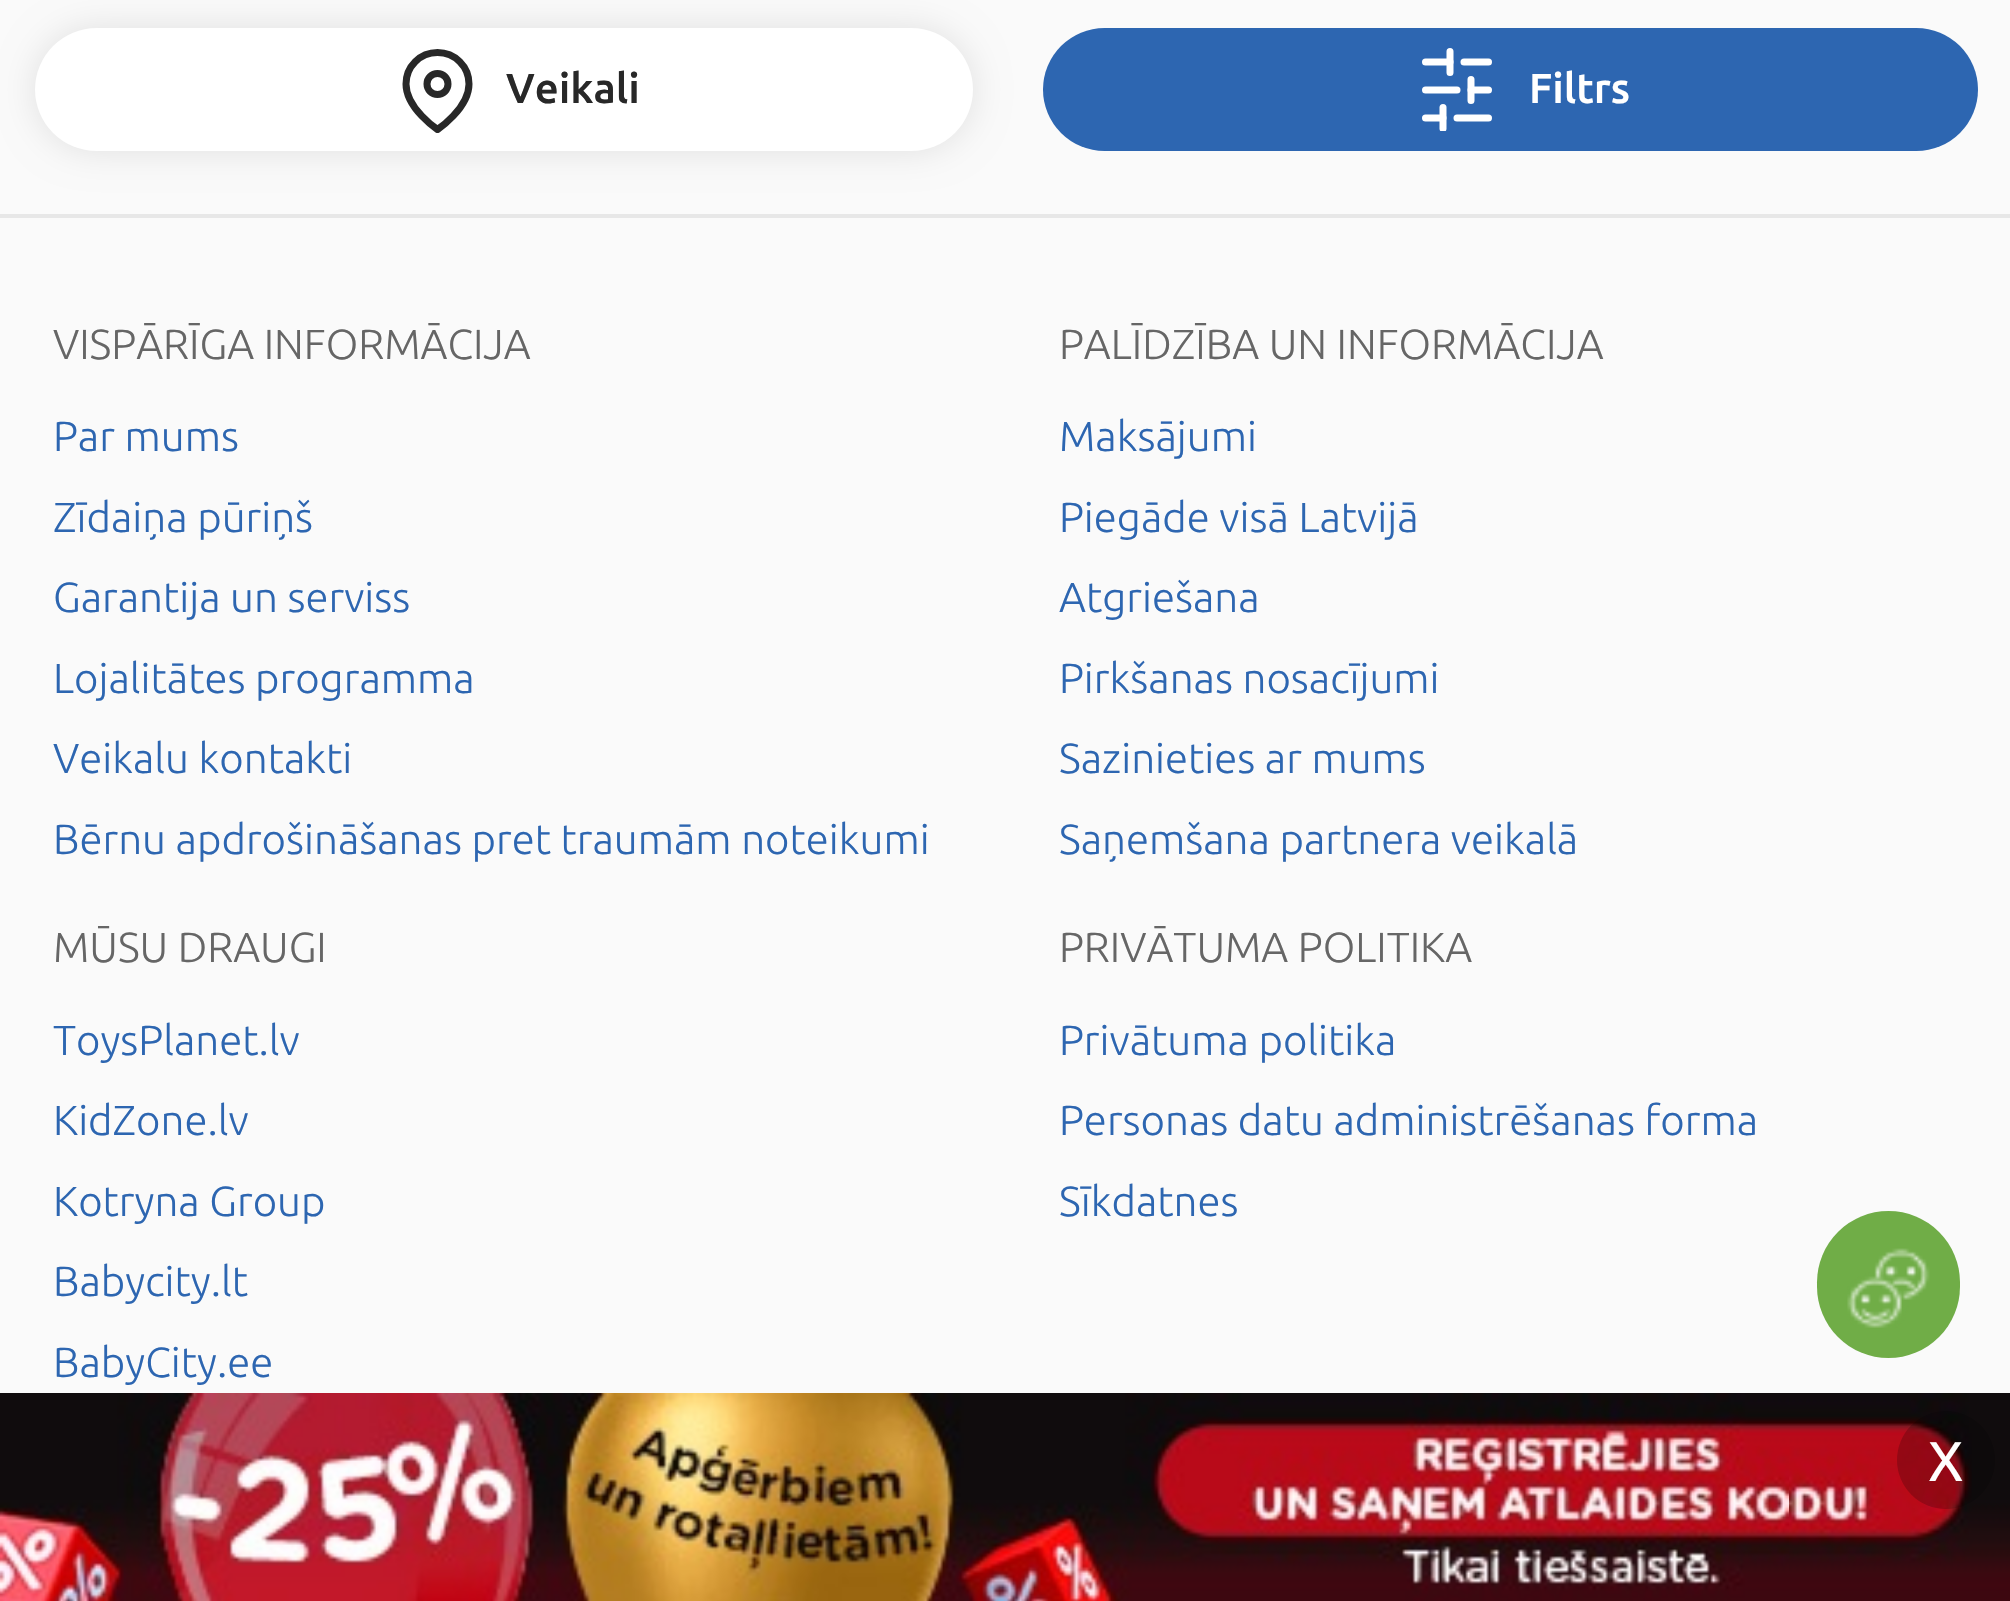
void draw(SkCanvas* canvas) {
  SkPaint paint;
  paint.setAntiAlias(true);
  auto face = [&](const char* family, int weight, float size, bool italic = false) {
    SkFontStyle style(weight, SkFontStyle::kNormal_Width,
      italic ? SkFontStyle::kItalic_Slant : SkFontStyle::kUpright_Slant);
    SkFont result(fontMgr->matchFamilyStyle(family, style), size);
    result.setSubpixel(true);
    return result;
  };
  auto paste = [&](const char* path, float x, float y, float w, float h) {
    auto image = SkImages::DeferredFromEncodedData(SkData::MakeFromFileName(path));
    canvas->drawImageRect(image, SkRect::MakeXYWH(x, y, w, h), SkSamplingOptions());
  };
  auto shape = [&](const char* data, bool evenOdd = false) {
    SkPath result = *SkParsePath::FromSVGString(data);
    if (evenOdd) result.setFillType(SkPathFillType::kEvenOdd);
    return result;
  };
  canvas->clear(0xfffafafa);
  paint.setColor(0x1a000000);
  paint.setMaskFilter(SkMaskFilter::MakeBlur(kNormal_SkBlurStyle, 17.5f));
  canvas->drawRoundRect(SkRect::MakeXYWH(35, 28, 938, 123), 61.5f, 61.5f, paint);
  paint.setMaskFilter(nullptr);
  paint.setColor(0xffffffff);
  canvas->drawRoundRect(SkRect::MakeXYWH(35, 28, 938, 123), 61.5f, 61.5f, paint);
  paint.setStroke(true);
  paint.setStrokeWidth(7);
  paint.setStrokeCap(SkPaint::kRound_Cap);
  paint.setStrokeJoin(SkPaint::kRound_Join);
  paint.setColor(0xff282828);
  canvas->drawPath(shape("M469 84C469 108.5 437.5 129.5 437.5 129.5C437.5 129.5 406 108.5 406 84C406 66.5 420 52.5 437.5 52.5C455 52.5 469 66.5 469 84Z"), paint);
  paint.setStrokeCap(SkPaint::kButt_Cap);
  paint.setStrokeJoin(SkPaint::kMiter_Join);
  canvas->drawCircle(437.5f, 84, 10.5f, paint);
  paint.setStroke(false);
  paint.setColor(0xff2d66b1);
  canvas->drawRoundRect(SkRect::MakeXYWH(1043, 28, 935, 123), 61.5f, 61.5f, paint);
  paint.setStroke(true);
  paint.setStrokeCap(SkPaint::kRound_Cap);
  paint.setStrokeJoin(SkPaint::kRound_Join);
  paint.setColor(0xffffffff);
  canvas->drawPath(shape("M1425.5 62H1450"), paint);
  canvas->drawPath(shape("M1464 62H1488.5"), paint);
  canvas->drawPath(shape("M1425.5 90H1457"), paint);
  canvas->drawPath(shape("M1471 90H1488.5"), paint);
  canvas->drawPath(shape("M1425.5 118H1443"), paint);
  canvas->drawPath(shape("M1457 118H1488.5"), paint);
  canvas->drawPath(shape("M1450 51.5V72.5M1471 79.5V100.5"), paint);
  canvas->save();
  canvas->clipPath(shape("M1501 47V131H1417V47Z"), true);
  canvas->clipPath(shape("M1501 47V131H1417V47Z"), true);
  canvas->drawPath(shape("M1443 107.5V128.5"), paint);
  canvas->restore();
  paint.setStroke(false);
  paint.setColor(0xffe7e7e7);
  canvas->drawRect(SkRect::MakeXYWH(0, 214, 2010, 4), paint);
  paint.setColor(0xff70ad47);
  canvas->drawRoundRect(SkRect::MakeXYWH(1817, 1211, 143, 147), 71.5f, 71.5f, paint);
  paste("img/1.png", 1847, 1248, 83, 80);
  paste("img/2.png", 0, 1393, 2010, 208);
  paint.setColor(0x33000000);
  canvas->drawCircle(1946, 1460, 49, paint);
  auto f0 = face("Ubuntu", 500, 42);
  paint.setColor(0xff282828);
  canvas->drawString("Veikali", 506, 103, f0, paint);
  paint.setColor(0xffffffff);
  canvas->drawString("Filtrs", 1529, 103, f0, paint);
  auto f1 = face("Ubuntu", 300, 42);
  paint.setColor(0xff666666);
  canvas->drawString("VISPĀRĪGA INFORMĀCIJA", 53, 359, f1, paint);
  paint.setColor(0xff2d66b1);
  {
    const struct { const char* s; float x, y; } items[] = {
      {"Par mums", 53, 451},
      {"Zīdaiņa pūriņš", 53, 532},
      {"Garantija un serviss", 53, 612},
      {"Lojalitātes programma", 53, 693},
      {"Veikalu kontakti", 53, 773},
      {"Bērnu apdrošināšanas pret traumām noteikumi", 53, 854},
    };
    for (auto [s, x, y] : items) {
      canvas->drawString(s, x, y, f1, paint);
    }
  }
  paint.setColor(0xff666666);
  canvas->drawString("PALĪDZĪBA UN INFORMĀCIJA", 1059, 359, f1, paint);
  paint.setColor(0xff2d66b1);
  {
    const struct { const char* s; float x, y; } items[] = {
      {"Maksājumi", 1059, 451},
      {"Piegāde visā Latvijā", 1059, 532},
      {"Atgriešana", 1059, 612},
      {"Pirkšanas nosacījumi", 1059, 693},
      {"Sazinieties ar mums", 1059, 773},
      {"Saņemšana partnera veikalā", 1059, 854},
    };
    for (auto [s, x, y] : items) {
      canvas->drawString(s, x, y, f1, paint);
    }
  }
  paint.setColor(0xff666666);
  canvas->drawString("MŪSU DRAUGI", 53, 962, f1, paint);
  paint.setColor(0xff2d66b1);
  {
    const struct { const char* s; float x, y; } items[] = {
      {"ToysPlanet.lv", 53, 1055},
      {"KidZone.lv", 53, 1135},
      {"Kotryna Group", 53, 1216},
      {"Babycity.lt", 53, 1296},
      {"BabyCity.ee", 53, 1377},
    };
    for (auto [s, x, y] : items) {
      canvas->drawString(s, x, y, f1, paint);
    }
  }
  paint.setColor(0xff666666);
  canvas->drawString("PRIVĀTUMA POLITIKA", 1059, 962, f1, paint);
  paint.setColor(0xff2d66b1);
  {
    const struct { const char* s; float x, y; } items[] = {
      {"Privātuma politika", 1059, 1055},
      {"Personas datu administrēšanas forma", 1059, 1135},
      {"Sīkdatnes", 1059, 1216},
    };
    for (auto [s, x, y] : items) {
      canvas->drawString(s, x, y, f1, paint);
    }
  }
  auto f2 = face("Ubuntu", 400, 56);
  paint.setColor(0xffffffff);
  canvas->drawString("X", 1928, 1481, f2, paint);
}
